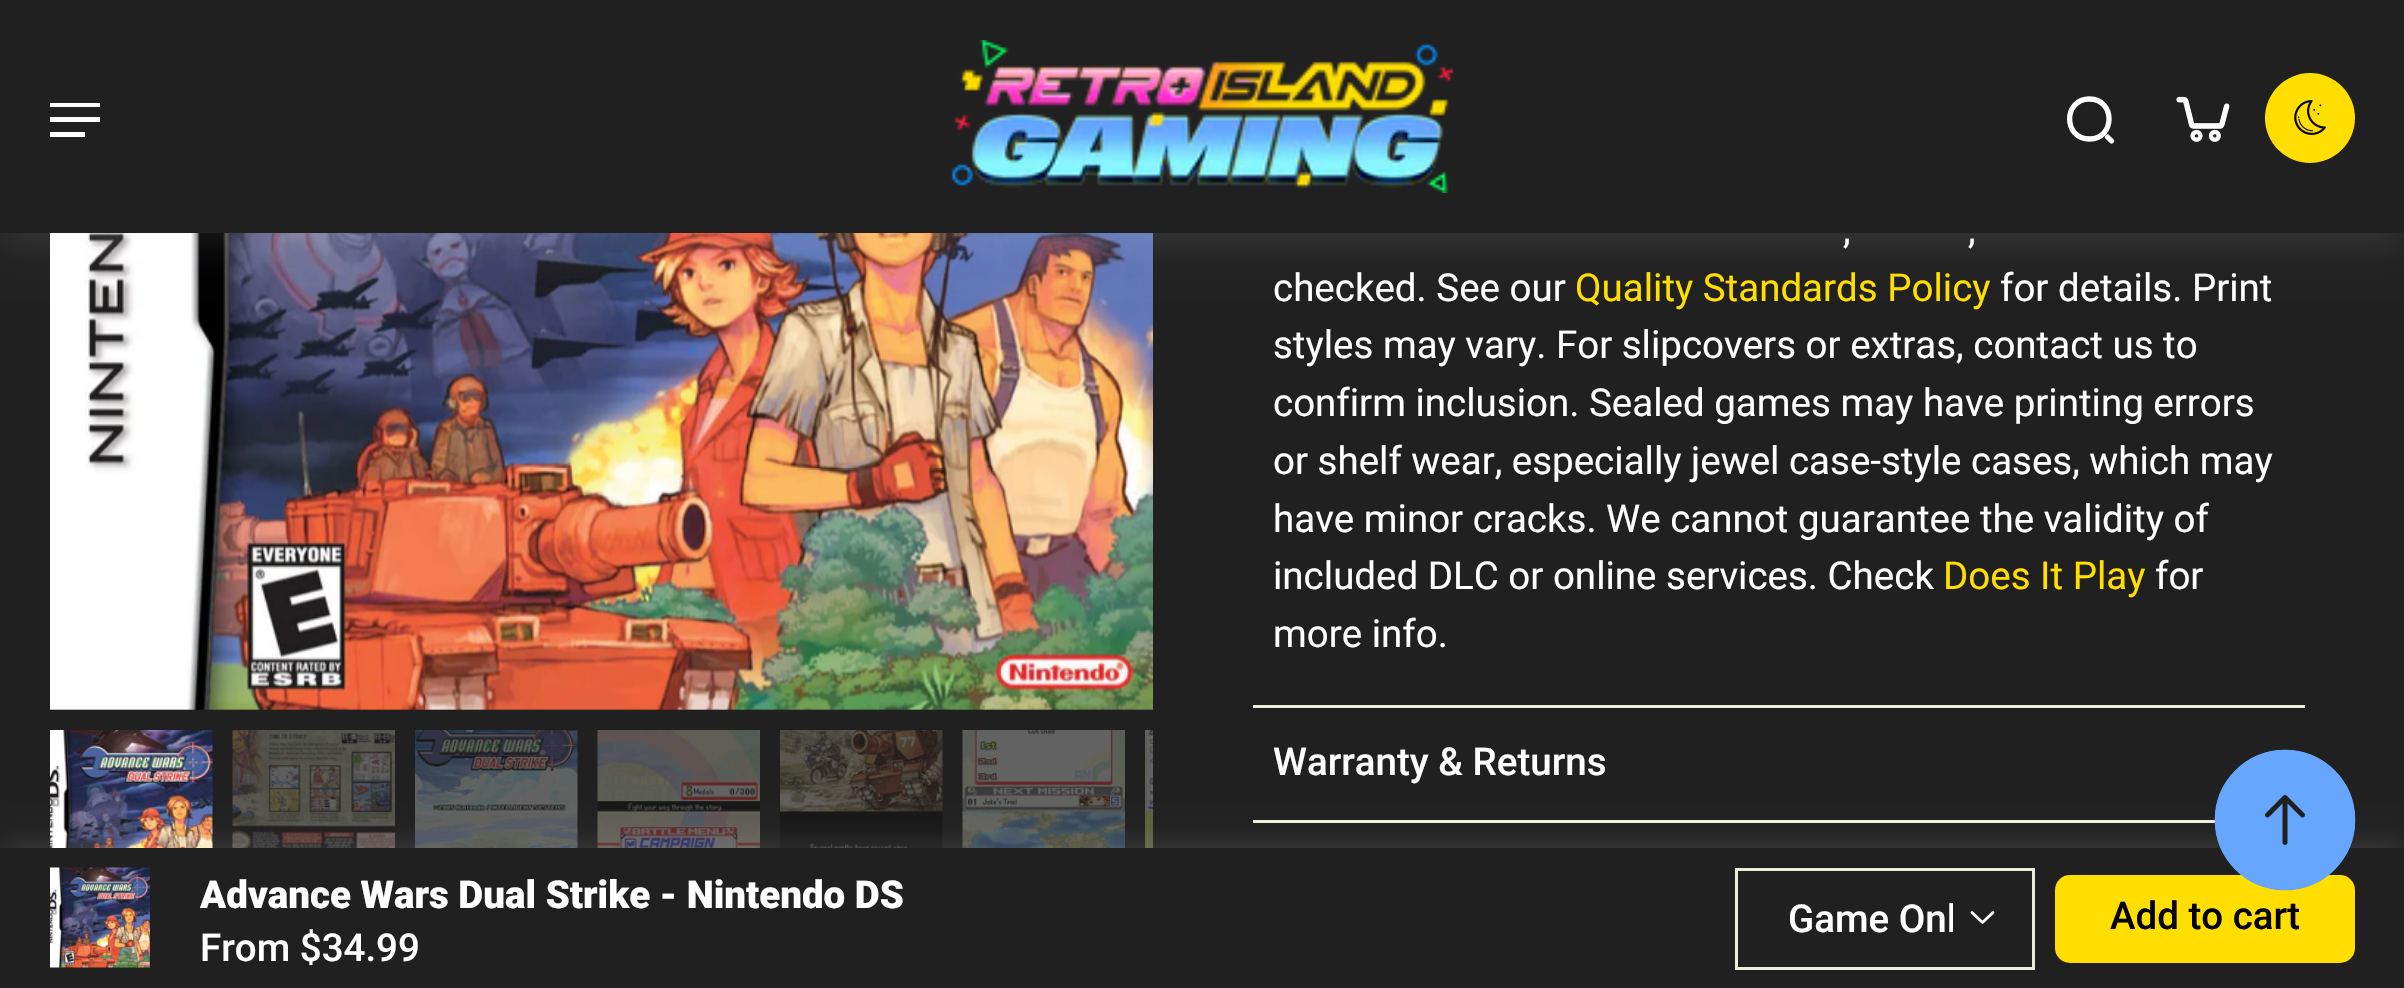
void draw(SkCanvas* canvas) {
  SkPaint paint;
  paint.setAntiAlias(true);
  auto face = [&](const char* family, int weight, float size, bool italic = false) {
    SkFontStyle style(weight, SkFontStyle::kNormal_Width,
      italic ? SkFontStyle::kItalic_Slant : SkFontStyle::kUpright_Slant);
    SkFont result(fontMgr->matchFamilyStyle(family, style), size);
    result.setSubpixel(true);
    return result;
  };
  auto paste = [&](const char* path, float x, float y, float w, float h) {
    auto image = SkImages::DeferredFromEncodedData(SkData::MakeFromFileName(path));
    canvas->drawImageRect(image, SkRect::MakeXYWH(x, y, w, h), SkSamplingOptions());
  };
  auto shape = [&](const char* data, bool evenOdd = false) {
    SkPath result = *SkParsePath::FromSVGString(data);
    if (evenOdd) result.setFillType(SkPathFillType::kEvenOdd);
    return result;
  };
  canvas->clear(0xff212020);
  paste("img/4.png", 50, 233, 1103, 477);
  paint.setColor(0x1affffff);
  paint.setMaskFilter(SkMaskFilter::MakeBlur(kNormal_SkBlurStyle, 19));
  canvas->drawRect(SkRect::MakeXYWH(0, 13, 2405, 232), paint);
  paint.setMaskFilter(nullptr);
  paint.setColor(0xff212020);
  canvas->drawRect(SkRect::MakeXYWH(0, 0, 2404, 233), paint);
  canvas->save();
  canvas->clipRect(SkRect::MakeXYWH(50, 103, 50, 35));
  paint.setColor(0xffffffff);
  canvas->drawPath(shape("M50 102V107H100V102ZM50 122H100V117H50ZM50 137H85V132H50Z", true), paint);
  canvas->restore();
  paste("img/1.png", 951, 40, 502, 153);
  paint.setStroke(true);
  paint.setStrokeWidth(5.3f);
  paint.setStrokeCap(SkPaint::kRound_Cap);
  paint.setStrokeJoin(SkPaint::kRound_Join);
  canvas->drawPath(shape("M2089.5 139C2115.5 139 2115.5 99 2089.5 99C2063 99 2063 139 2089.5 139ZM2111.5 141L2107.5 137"), paint);
  paste("img/2.png", 2176, 96, 54, 46);
  paint.setStroke(false);
  paint.setColor(0xffffde00);
  canvas->drawCircle(2310, 118, 45, paint);
  paste("img/3.png", 2294, 100, 32, 35);
  paste("img/5.png", 50, 730, 163, 118);
  paste("img/6.png", 232, 730, 163, 118);
  paste("img/7.png", 415, 730, 163, 118);
  paste("img/8.png", 597, 730, 163, 118);
  paste("img/9.png", 780, 730, 163, 118);
  paste("img/10.png", 962, 730, 163, 118);
  paste("img/11.png", 1145, 730, 8, 118);
  paint.setColor(0xffededdd);
  canvas->drawRect(SkRect::MakeXYWH(1253, 705, 1052, 3), paint);
  canvas->drawRect(SkRect::MakeXYWH(1253, 820, 962, 3), paint);
  paint.setColor(0x1affffff);
  paint.setMaskFilter(SkMaskFilter::MakeBlur(kNormal_SkBlurStyle, 12.5f));
  canvas->drawRect(SkRect::MakeXYWH(3, 840, 2400, 138), paint);
  paint.setMaskFilter(nullptr);
  paint.setColor(0xff212020);
  canvas->drawRect(SkRect::MakeXYWH(0, 848, 2404, 140), paint);
  paste("img/12.png", 50, 867, 100, 101);
  paint.setStroke(true);
  paint.setStrokeWidth(3);
  paint.setStrokeCap(SkPaint::kButt_Cap);
  paint.setStrokeJoin(SkPaint::kMiter_Join);
  paint.setColor(0xffededdd);
  canvas->drawRect(SkRect::MakeXYWH(1736.5f, 869.5f, 297, 99), paint);
  paint.setStrokeWidth(2.8f);
  paint.setStrokeCap(SkPaint::kRound_Cap);
  paint.setStrokeJoin(SkPaint::kRound_Join);
  paint.setColor(0xffffffff);
  canvas->drawPath(shape("M1972 912.5L1982.5 922.5L1993 912.5"), paint);
  paint.setStroke(false);
  paint.setColor(0xffffde00);
  canvas->drawRoundRect(SkRect::MakeXYWH(2055, 875, 300, 88), 15, 15, paint);
  paint.setColor(0xff66a6ff);
  canvas->drawPath(shape("M2215 820C2215 781 2246 750 2285 750C2324 750 2355 781 2355 820C2355 859 2324 890 2285 890C2246 890 2215 859 2215 820Z"), paint);
  paint.setStroke(true);
  paint.setStrokeWidth(2.5f);
  paint.setStrokeCap(SkPaint::kButt_Cap);
  paint.setStrokeJoin(SkPaint::kMiter_Join);
  canvas->drawPath(shape("M2216 820C2216 782 2247 751 2285 751C2323 751 2354 782 2354 820C2354 858 2323 889 2285 889C2247 889 2216 858 2216 820Z"), paint);
  paste("img/13.png", 2265, 795, 40, 50);
  auto f0 = face("Roboto", 400, 38.5f);
  paint.setStroke(false);
  paint.setColor(0xffffffff);
  {
    const struct { const char* s; float x, y; } items[] = {
      {",", 1843, 243},
      {",", 1968, 243},
      {"checked. See our", 1273, 301},
    };
    for (auto [s, x, y] : items) {
      canvas->drawString(s, x, y, f0, paint);
    }
  }
  paint.setColor(0xffffde00);
  canvas->drawString("Quality Standards Policy", 1575, 301, f0, paint);
  paint.setColor(0xffffffff);
  {
    const struct { const char* s; float x, y; } items[] = {
      {"for details. Print", 2000, 301},
      {"styles may vary. For slipcovers or extras, contact us to", 1273, 358},
      {"confirm inclusion. Sealed games may have printing errors", 1273, 416},
      {"or shelf wear, especially jewel case-style cases, which may", 1273, 474},
      {"have minor cracks. We cannot guarantee the validity of", 1273, 532},
      {"included DLC or online services. Check", 1273, 589},
    };
    for (auto [s, x, y] : items) {
      canvas->drawString(s, x, y, f0, paint);
    }
  }
  paint.setColor(0xffffde00);
  canvas->drawString("Does It Play", 1943, 589, f0, paint);
  paint.setColor(0xffffffff);
  canvas->drawString("for", 2155, 589, f0, paint);
  canvas->drawString("more info.", 1273, 647, f0, paint);
  auto f1 = face("Roboto", 500, 38.5f);
  canvas->drawString("Warranty & Returns", 1273, 775, f1, paint);
  auto f2 = face("Roboto", 900, 38.5f);
  canvas->drawString("Advance Wars Dual Strike - Nintendo DS", 200, 908, f2, paint);
  canvas->drawString("From $34.99", 200, 961, f1, paint);
  canvas->save();
  canvas->clipRect(SkRect::MakeXYWH(1788, 895, 165, 53));
  canvas->drawString("Game Onl", 1788, 932, f1, paint);
  canvas->restore();
  paint.setColor(0xff000000);
  canvas->drawString("Add to cart", 2110, 929, f1, paint);
}
